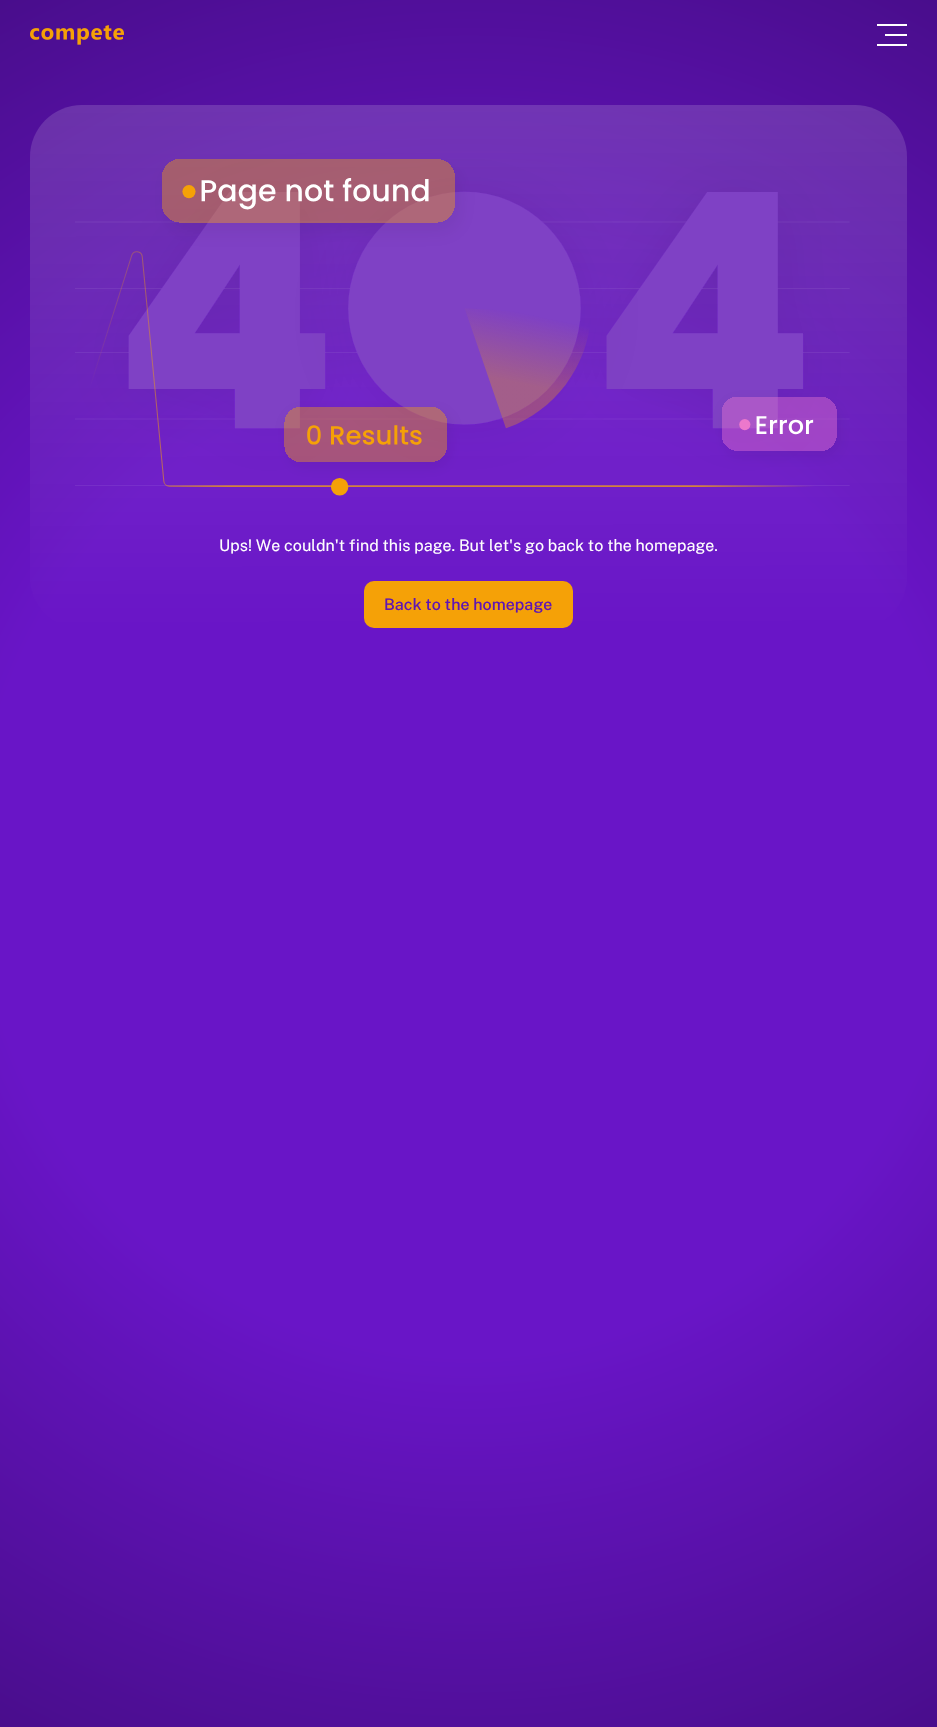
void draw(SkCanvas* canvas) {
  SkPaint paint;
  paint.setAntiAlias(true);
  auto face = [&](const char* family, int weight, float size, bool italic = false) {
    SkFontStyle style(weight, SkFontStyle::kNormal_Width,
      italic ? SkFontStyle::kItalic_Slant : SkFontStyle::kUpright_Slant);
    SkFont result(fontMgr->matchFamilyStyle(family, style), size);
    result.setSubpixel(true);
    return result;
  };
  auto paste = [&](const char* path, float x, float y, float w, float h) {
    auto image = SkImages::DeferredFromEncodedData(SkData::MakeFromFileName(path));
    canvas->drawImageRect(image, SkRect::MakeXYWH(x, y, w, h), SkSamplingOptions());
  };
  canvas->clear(0xffffffff);
  {
    const SkColor colors[] = {0xff6915c7, 0xff490d8c};
    const float stops[] = {0.5f, 1};
    paint.setShader(SkGradientShader::MakeRadial({469, 864}, 982, colors, stops, 2, SkTileMode::kClamp));
    paint.setAlpha(255);
  }
  canvas->drawRect(SkRect::MakeXYWH(0, 0, 937, 1727), paint);
  paste("img/1.png", 30, 25, 94, 20);
  paint.setShader(nullptr);
  {
    const struct { float x, y, w, h; SkColor color; } items[] = {
      {877, 24, 30, 2, 0xffffffff},
      {885, 34, 22, 2, 0xffffffff},
      {877, 44, 30, 2, 0xffffffff},
    };
    for (auto [x, y, w, h, color] : items) {
      paint.setColor(color);
      canvas->drawRect(SkRect::MakeXYWH(x, y, w, h), paint);
    }
  }
  {
    const SkColor colors[] = {0x26ffffff, 0x00ffffff};
    const float stops[] = {0, 1};
    const SkPoint ends[] = {{468, 105}, {469, 628}};
    paint.setShader(SkGradientShader::MakeLinear(ends, colors, stops, 2, SkTileMode::kClamp));
    paint.setAlpha(255);
  }
  canvas->drawRoundRect(SkRect::MakeXYWH(30, 105, 877, 523), 52, 52, paint);
  paste("img/2.png", 75, 159, 775, 337);
  paint.setShader(nullptr);
  paint.setColor(0xfff5a107);
  canvas->drawRoundRect(SkRect::MakeXYWH(364, 581, 209, 47), 10, 10, paint);
  auto f0 = face("Public Sans", 400, 16);
  paint.setColor(0xffffffff);
  canvas->drawString("Ups! We couldn't find this page. But let's go back to the homepage.", 219, 551, f0, paint);
  auto f1 = face("Public Sans", 500, 16);
  paint.setColor(0xff6016b2);
  canvas->drawString("Back to the homepage", 384, 610, f1, paint);
}
